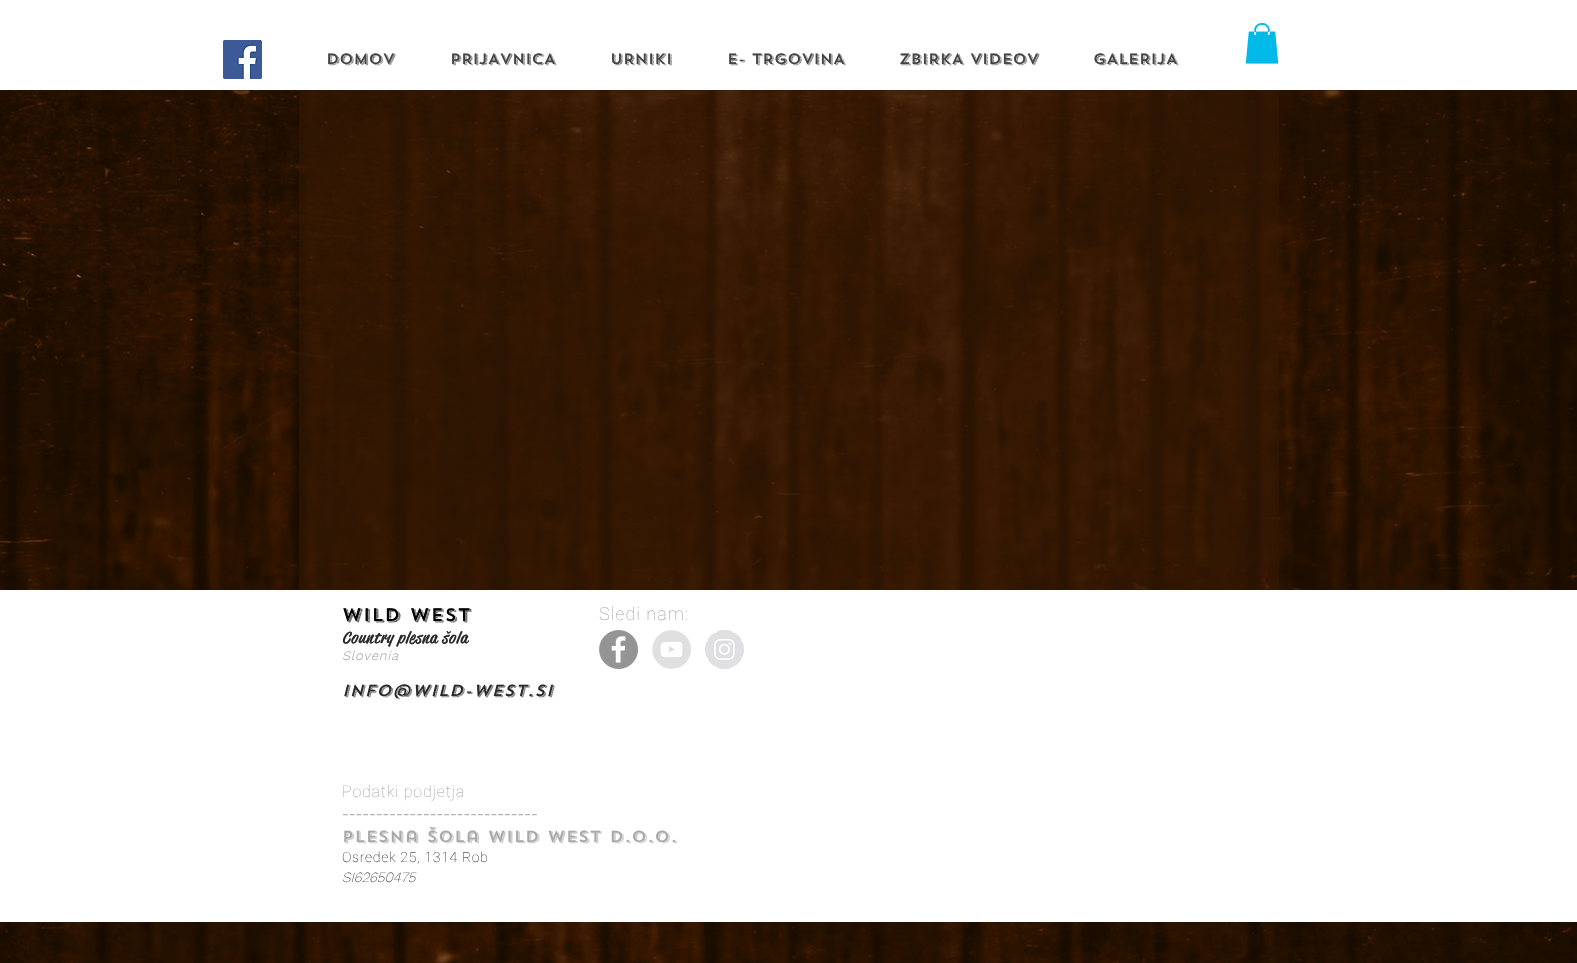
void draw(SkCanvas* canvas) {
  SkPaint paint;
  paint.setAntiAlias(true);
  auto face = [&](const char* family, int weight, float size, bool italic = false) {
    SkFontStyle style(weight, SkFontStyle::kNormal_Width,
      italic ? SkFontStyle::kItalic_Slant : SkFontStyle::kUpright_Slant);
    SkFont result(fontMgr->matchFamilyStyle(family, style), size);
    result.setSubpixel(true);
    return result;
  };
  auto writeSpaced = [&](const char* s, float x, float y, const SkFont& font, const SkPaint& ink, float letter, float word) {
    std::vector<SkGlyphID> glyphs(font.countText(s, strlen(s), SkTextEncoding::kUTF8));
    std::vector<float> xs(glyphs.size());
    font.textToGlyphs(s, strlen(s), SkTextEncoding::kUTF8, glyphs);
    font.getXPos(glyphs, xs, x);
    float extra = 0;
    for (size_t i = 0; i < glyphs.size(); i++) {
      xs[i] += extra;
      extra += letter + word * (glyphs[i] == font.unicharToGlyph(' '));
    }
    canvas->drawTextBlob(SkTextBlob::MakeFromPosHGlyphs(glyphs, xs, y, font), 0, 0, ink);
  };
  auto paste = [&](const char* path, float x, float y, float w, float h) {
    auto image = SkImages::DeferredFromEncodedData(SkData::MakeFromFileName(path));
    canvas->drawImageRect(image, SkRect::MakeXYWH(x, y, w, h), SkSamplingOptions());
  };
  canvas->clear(0xffffffff);
  paste("img/1.png", 223, 40, 39, 39);
  paste("img/2.png", 1245, 23, 34, 41);
  paste("img/6.png", 0, 90, 1577, 873);
  paint.setColor(0x99331704);
  canvas->drawRect(SkRect::MakeXYWH(299, 90, 980, 500), paint);
  paint.setColor(0xffffffff);
  canvas->drawRect(SkRect::MakeXYWH(0, 590, 1577, 332), paint);
  paste("img/3.png", 599, 630, 39, 39);
  paste("img/4.png", 652, 630, 39, 39);
  paste("img/5.png", 705, 630, 39, 39);
  auto f0 = face("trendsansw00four", 500, 15);
  paint.setColor(0xff444444);
  {
    const struct { const char* s; float x, y; } items[] = {
      {"DOMOV", 326, 64},
      {"PRIJAVNICA", 450, 64},
      {"URNIKI", 610, 64},
      {"E- TRGOVINA", 727, 64},
      {"ZBIRKA VIDEOV", 899, 64},
      {"GALERIJA", 1093, 64},
    };
    for (auto [s, x, y] : items) {
      canvas->drawString(s, x, y, f0, paint);
    }
  }
  auto f1 = face("trendsansw00four", 500, 18);
  paint.setColor(0xff000000);
  writeSpaced("WILD WEST", 342, 621, f1, paint, 1, 0);
  auto f2 = face("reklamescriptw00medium", 500, 16, true);
  paint.setColor(0xff292929);
  writeSpaced("Country plesna šola", 342, 643, f2, paint, 0.8f, 0);
  auto f3 = face("Work Sans", 300, 13, true);
  paint.setColor(0xffa8a8a8);
  writeSpaced("Slovenia", 342, 660, f3, paint, 0.75f, 0);
  auto f4 = face("trendsansw00four", 500, 16, true);
  paint.setColor(0xff292929);
  writeSpaced("info@wild-west.si", 342, 696, f4, paint, 0.8f, 0);
  auto f5 = face("Roboto", 100, 18);
  paint.setColor(0xffa8a8a8);
  writeSpaced("Sledi nam:", 599, 620, f5, paint, 1, 0);
  auto f6 = face("Roboto", 100, 16);
  writeSpaced("Podatki podjetja", 342, 797, f6, paint, 0.8f, 0);
  auto f7 = face("Raleway", 400, 16);
  canvas->drawString("-----------------------------", 342, 819, f7, paint);
  auto f8 = face("trendsansw00four", 500, 16);
  writeSpaced("Plesna šola WILD WEST d.o.o.", 342, 842, f8, paint, 0.8f, 0);
  auto f9 = face("Roboto", 100, 14);
  paint.setColor(0xff292929);
  writeSpaced("Osredek 25, 1314 Rob", 342, 862, f9, paint, 0.7f, 0);
  auto f10 = face("Work Sans", 200, 14, true);
  canvas->drawString("SI62650475", 342, 882, f10, paint);
}
